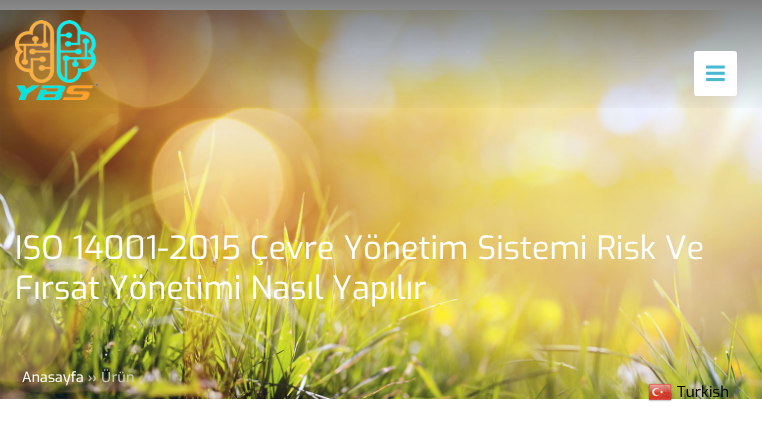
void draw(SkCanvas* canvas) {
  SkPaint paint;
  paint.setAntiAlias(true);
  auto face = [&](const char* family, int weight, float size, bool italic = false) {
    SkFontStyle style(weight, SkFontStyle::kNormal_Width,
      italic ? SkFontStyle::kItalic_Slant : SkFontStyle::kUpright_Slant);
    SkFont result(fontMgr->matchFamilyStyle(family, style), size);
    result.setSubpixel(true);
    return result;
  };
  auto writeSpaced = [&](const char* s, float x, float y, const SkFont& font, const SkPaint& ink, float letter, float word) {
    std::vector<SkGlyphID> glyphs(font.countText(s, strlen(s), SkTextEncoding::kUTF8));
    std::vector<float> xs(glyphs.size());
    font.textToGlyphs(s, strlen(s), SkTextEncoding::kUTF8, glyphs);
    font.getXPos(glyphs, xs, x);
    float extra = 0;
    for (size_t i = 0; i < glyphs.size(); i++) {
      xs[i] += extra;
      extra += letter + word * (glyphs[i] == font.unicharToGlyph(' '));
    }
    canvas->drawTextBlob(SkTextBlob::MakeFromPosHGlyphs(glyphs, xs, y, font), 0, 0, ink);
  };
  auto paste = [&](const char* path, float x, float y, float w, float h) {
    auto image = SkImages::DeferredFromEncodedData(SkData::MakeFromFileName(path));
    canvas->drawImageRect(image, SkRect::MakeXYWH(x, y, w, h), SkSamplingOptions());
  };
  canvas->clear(0xffffffff);
  paste("img/3.png", 0, 10, 762, 389);
  {
    const SkColor colors[] = {0x03000000, 0x80000000};
    const float stops[] = {0, 1};
    const SkPoint ends[] = {{381, 111}, {381, 0}};
    paint.setShader(SkGradientShader::MakeLinear(ends, colors, stops, 2, SkTileMode::kClamp));
    paint.setAlpha(255);
  }
  canvas->drawRect(SkRect::MakeXYWH(0, 0, 762, 108), paint);
  paste("img/1.png", 15, 20, 84, 80);
  paint.setShader(nullptr);
  paint.setColor(0xffffffff);
  canvas->drawRoundRect(SkRect::MakeXYWH(694, 51, 43, 45), 3, 3, paint);
  paste("img/2.png", 706, 65, 19, 17);
  paste("img/4.png", 648, 383, 24, 19);
  auto f0 = face("Exo", 400, 32);
  writeSpaced("ISO 14001-2015 Çevre Yönetim Sistemi Risk Ve", 15, 259, f0, paint, 0.2f, 0);
  writeSpaced("Fırsat Yönetimi Nasıl Yapılır", 15, 299, f0, paint, 0.2f, 0);
  auto f1 = face("Exo", 400, 14);
  writeSpaced("Anasayfa", 22, 382, f1, paint, 0.2f, 0);
  auto f2 = face("Open Sans", 400, 14);
  paint.setColor(0xffcdcebe);
  writeSpaced("››", 88, 382, f2, paint, 0.2f, 0);
  writeSpaced("Ürün", 101, 382, f2, paint, 0.2f, 0);
  auto f3 = face("Exo", 400, 15);
  paint.setColor(0xff000000);
  writeSpaced("Turkish", 677, 397, f3, paint, 0.2f, 0);
  auto f4 = face("Liberation Sans", 700, 8);
  paint.setColor(0xff666666);
  writeSpaced("▼", 734, 394, f4, paint, 0.2f, 0);
}
